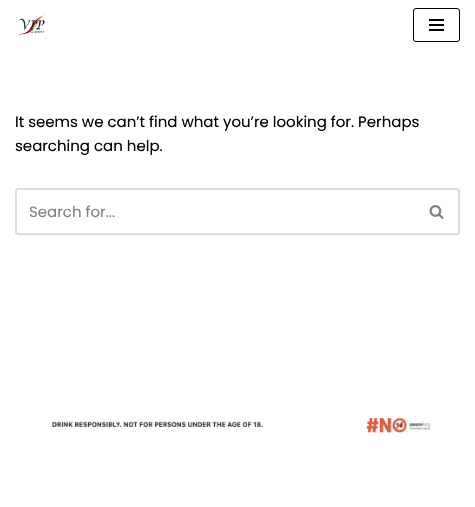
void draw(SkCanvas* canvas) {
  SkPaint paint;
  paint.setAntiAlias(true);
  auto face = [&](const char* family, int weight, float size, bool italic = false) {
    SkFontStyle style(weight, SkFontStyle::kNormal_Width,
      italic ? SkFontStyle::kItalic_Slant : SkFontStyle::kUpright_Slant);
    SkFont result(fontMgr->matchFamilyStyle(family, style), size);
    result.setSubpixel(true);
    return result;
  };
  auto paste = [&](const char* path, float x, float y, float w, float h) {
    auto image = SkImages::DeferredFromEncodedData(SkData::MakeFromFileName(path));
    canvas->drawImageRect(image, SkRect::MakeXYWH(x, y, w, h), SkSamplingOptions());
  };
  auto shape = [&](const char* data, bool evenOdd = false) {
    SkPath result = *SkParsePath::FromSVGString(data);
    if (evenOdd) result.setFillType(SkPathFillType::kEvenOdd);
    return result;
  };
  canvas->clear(0xffffffff);
  paste("img/1.png", 18, 15, 27, 20);
  paint.setStroke(true);
  paint.setStrokeWidth(1);
  paint.setColor(0xff000000);
  canvas->drawRoundRect(SkRect::MakeXYWH(413.5f, 8.5f, 46, 33), 2.5f, 2.5f, paint);
  paint.setStroke(false);
  {
    const struct { float x, y, w, h; SkColor color; } items[] = {
      {429, 19, 15, 2, 0xff000000},
      {429, 24, 15, 2, 0xff000000},
      {429, 29, 15, 2, 0xff000000},
    };
    for (auto [x, y, w, h, color] : items) {
      paint.setColor(color);
      canvas->drawRect(SkRect::MakeXYWH(x, y, w, h), paint);
    }
  }
  paint.setColor(0xffdddddd);
  canvas->drawPath(shape("M18 188H415V235H18C16 235 15 234 15 232V191C15 189 16 188 18 188ZM18 190H415V233H18L17 232V198C17 196 16 190 18 190Z", true), paint);
  canvas->drawPath(shape("M415 188H457C459 188 460 189 460 191V232C460 234 459 235 457 235H415ZM415 190H457C458 190 458 190 458 191V232C458 233 458 233 457 233H415Z", true), paint);
  paste("img/2.png", 429, 205, 15, 14);
  paste("img/3.png", 52, 418, 379, 15);
  auto f0 = face("Poppins", 400, 15);
  paint.setColor(0xff000000);
  canvas->drawString("It seems we can’t find what you’re looking for. Perhaps", 15, 127, f0, paint);
  canvas->drawString("searching can help.", 15, 151, f0, paint);
  paint.setColor(0xff808080);
  canvas->drawString("Search for...", 29, 217, f0, paint);
}
